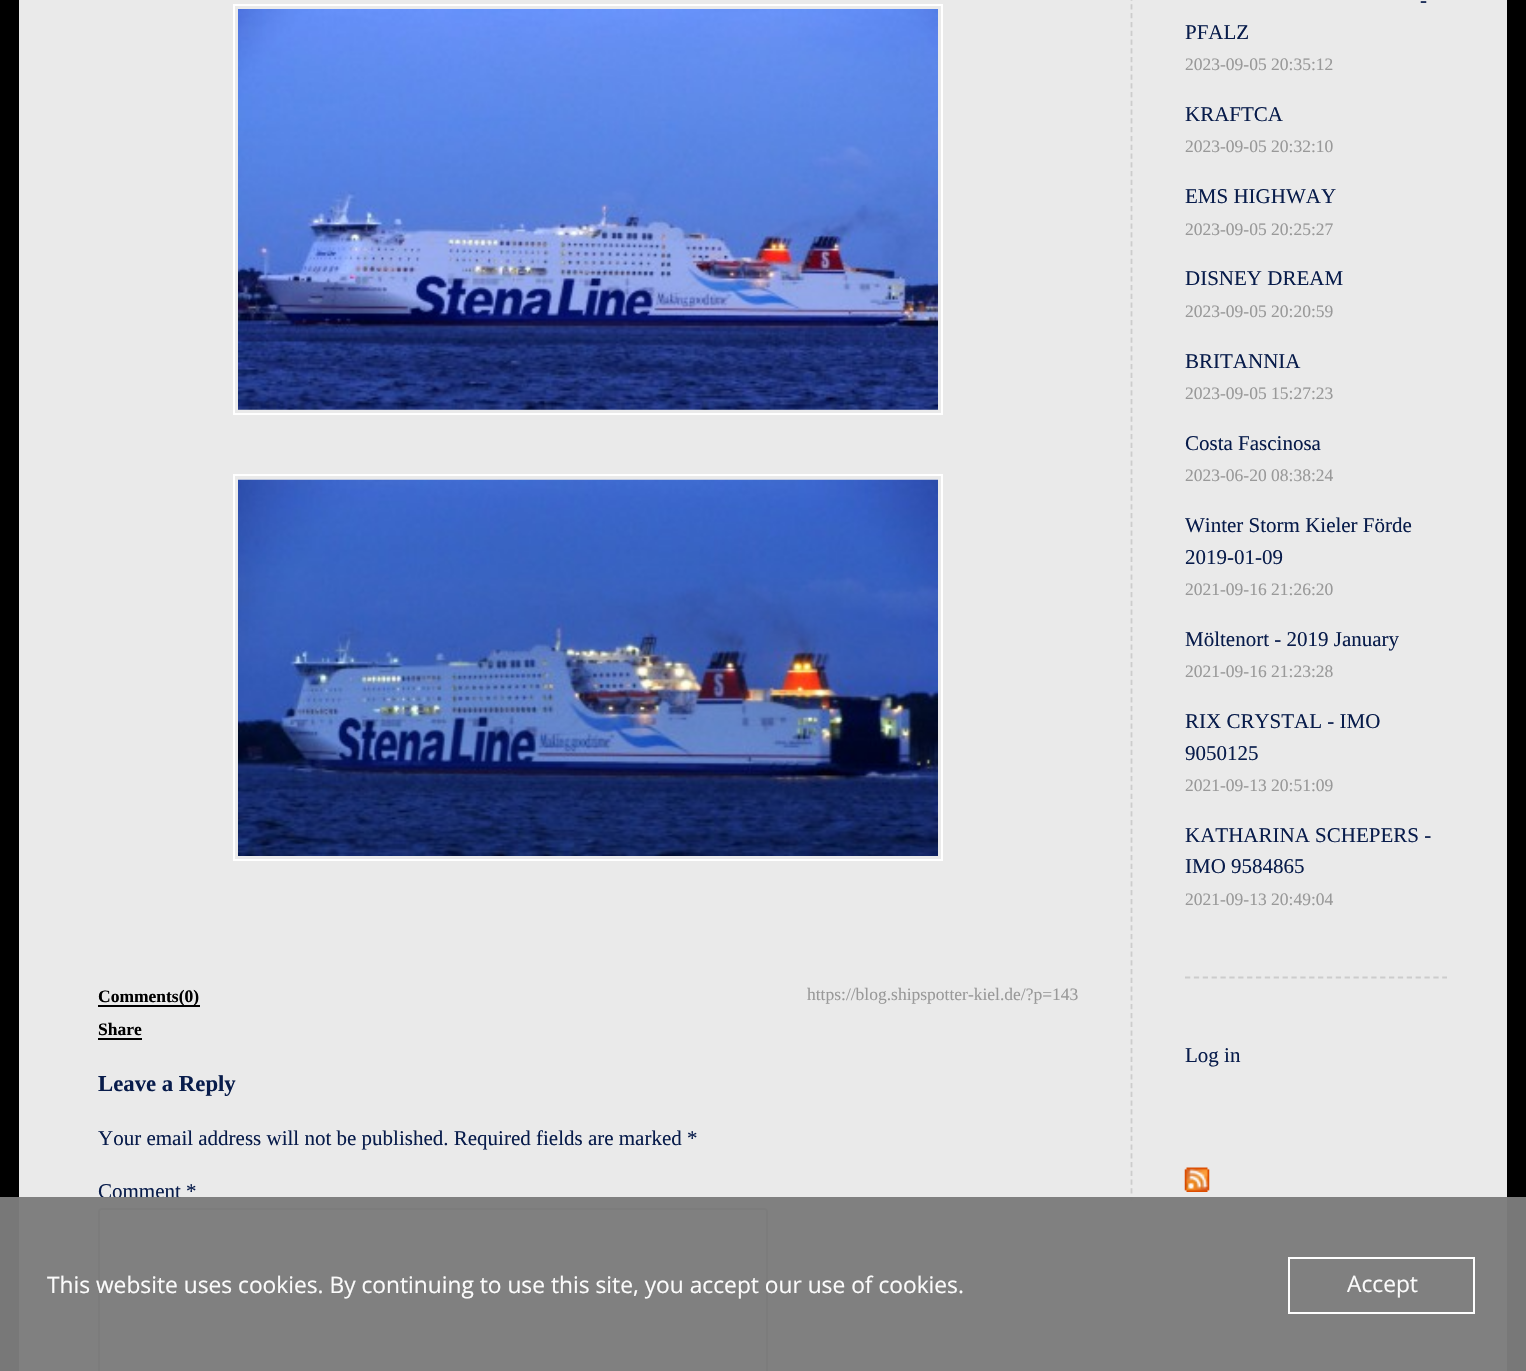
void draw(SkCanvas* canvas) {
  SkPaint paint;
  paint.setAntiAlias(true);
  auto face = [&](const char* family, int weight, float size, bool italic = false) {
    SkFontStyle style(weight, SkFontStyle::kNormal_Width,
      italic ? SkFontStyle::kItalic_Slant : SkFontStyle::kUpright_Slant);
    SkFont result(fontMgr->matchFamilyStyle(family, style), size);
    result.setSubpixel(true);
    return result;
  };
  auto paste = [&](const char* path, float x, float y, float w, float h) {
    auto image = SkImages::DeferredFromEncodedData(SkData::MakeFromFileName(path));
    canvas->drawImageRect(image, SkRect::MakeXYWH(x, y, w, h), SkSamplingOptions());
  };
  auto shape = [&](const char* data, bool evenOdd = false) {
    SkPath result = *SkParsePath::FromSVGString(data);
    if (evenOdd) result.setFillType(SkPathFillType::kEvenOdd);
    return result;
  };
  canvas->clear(0xff000000);
  paint.setColor(0xffeaeaea);
  canvas->drawRect(SkRect::MakeXYWH(19, 0, 1488, 1371), paint);
  paint.setStroke(true);
  paint.setStrokeWidth(1.8f);
  paint.setColor(0xffcccccc);
  paint.setPathEffect(SkDashPathEffect::Make({{5.25f, 3.52f}}, 0));
  canvas->drawPath(shape("M1131.5-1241V1200.5"), paint);
  paint.setPathEffect(nullptr);
  paint.setPathEffect(SkDashPathEffect::Make({{5.25f, 3.62f}}, 0));
  canvas->drawPath(shape("M1185 977.5H1447"), paint);
  paint.setPathEffect(nullptr);
  paste("img/1.png", 1184, 1167, 26, 25);
  paint.setStrokeWidth(2);
  paint.setColor(0xffffffff);
  canvas->drawRect(SkRect::MakeXYWH(234, 5, 708, 409), paint);
  paste("img/2.png", 238, 9, 700, 401);
  canvas->drawRect(SkRect::MakeXYWH(234, 475, 708, 385), paint);
  paste("img/3.png", 238, 479, 700, 377);
  paint.setStroke(false);
  paint.setColor(0xff000000);
  canvas->drawRect(SkRect::MakeXYWH(98, 1005, 102, 2), paint);
  canvas->drawRect(SkRect::MakeXYWH(98, 1038, 44, 2), paint);
  paint.setColor(0xffffffff);
  canvas->drawRoundRect(SkRect::MakeXYWH(99, 1209, 668, 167), 3, 3, paint);
  paint.setStroke(true);
  paint.setColor(0xff767676);
  canvas->drawRoundRect(SkRect::MakeXYWH(99, 1209, 668, 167), 3, 3, paint);
  auto f0 = face("Liberation Serif", 400, 21);
  paint.setStroke(false);
  paint.setColor(0xff081c4b);
  canvas->drawString("-", 1420, 7, f0, paint);
  canvas->drawString("PFALZ", 1185, 39, f0, paint);
  auto f1 = face("Liberation Serif", 400, 17.5f);
  paint.setColor(0xff999999);
  canvas->drawString("2023-09-05 20:35:12", 1185, 70, f1, paint);
  paint.setColor(0xff081c4b);
  canvas->drawString("KRAFTCA", 1185, 121, f0, paint);
  paint.setColor(0xff999999);
  canvas->drawString("2023-09-05 20:32:10", 1185, 152, f1, paint);
  paint.setColor(0xff081c4b);
  canvas->drawString("EMS HIGHWAY", 1185, 203, f0, paint);
  paint.setColor(0xff999999);
  canvas->drawString("2023-09-05 20:25:27", 1185, 235, f1, paint);
  paint.setColor(0xff081c4b);
  canvas->drawString("DISNEY DREAM", 1185, 285, f0, paint);
  paint.setColor(0xff999999);
  canvas->drawString("2023-09-05 20:20:59", 1185, 317, f1, paint);
  paint.setColor(0xff081c4b);
  canvas->drawString("BRITANNIA", 1185, 368, f0, paint);
  paint.setColor(0xff999999);
  canvas->drawString("2023-09-05 15:27:23", 1185, 399, f1, paint);
  paint.setColor(0xff081c4b);
  canvas->drawString("Costa Fascinosa", 1185, 450, f0, paint);
  paint.setColor(0xff999999);
  canvas->drawString("2023-06-20 08:38:24", 1185, 481, f1, paint);
  paint.setColor(0xff081c4b);
  canvas->drawString("Winter Storm Kieler Förde", 1185, 532, f0, paint);
  canvas->drawString("2019-01-09", 1185, 564, f0, paint);
  paint.setColor(0xff999999);
  canvas->drawString("2021-09-16 21:26:20", 1185, 595, f1, paint);
  paint.setColor(0xff081c4b);
  canvas->drawString("Möltenort - 2019 January", 1185, 646, f0, paint);
  paint.setColor(0xff999999);
  canvas->drawString("2021-09-16 21:23:28", 1185, 677, f1, paint);
  paint.setColor(0xff081c4b);
  canvas->drawString("RIX CRYSTAL - IMO", 1185, 728, f0, paint);
  canvas->drawString("9050125", 1185, 760, f0, paint);
  paint.setColor(0xff999999);
  canvas->drawString("2021-09-13 20:51:09", 1185, 791, f1, paint);
  paint.setColor(0xff081c4b);
  canvas->drawString("KATHARINA SCHEPERS -", 1185, 842, f0, paint);
  canvas->drawString("IMO 9584865", 1185, 873, f0, paint);
  paint.setColor(0xff999999);
  canvas->drawString("2021-09-13 20:49:04", 1185, 905, f1, paint);
  paint.setColor(0xff081c4b);
  canvas->drawString("Log in", 1185, 1062, f0, paint);
  auto f2 = face("Liberation Serif", 700, 17.5f);
  paint.setColor(0xff000000);
  canvas->drawString("Comments(0)", 98, 1002, f2, paint);
  paint.setColor(0xff999999);
  canvas->drawString("https://blog.shipspotter-kiel.de/?p=143", 807, 1000, f1, paint);
  paint.setColor(0xff000000);
  canvas->drawString("Share", 98, 1035, f2, paint);
  auto f3 = face("Liberation Serif", 700, 22.75f);
  paint.setColor(0xff081c4b);
  canvas->drawString("Leave a Reply", 98, 1091, f3, paint);
  canvas->drawString("Your email address will not be published. Required fields are marked *", 98, 1145, f0, paint);
  canvas->drawString("Comment *", 98, 1198, f0, paint);
  paint.setColor(0xf77c7c7c);
  canvas->drawRect(SkRect::MakeXYWH(0, 1197, 1526, 174), paint);
  auto f4 = face("Open Sans", 400, 22.75f);
  paint.setColor(0xfffbfbfb);
  canvas->drawString("This website uses cookies. By continuing to use this site, you accept our use of cookies.", 47, 1293, f4, paint);
  paint.setStroke(true);
  paint.setColor(0xfffefefe);
  canvas->drawRect(SkRect::MakeXYWH(1289, 1258, 185, 55), paint);
  paint.setStroke(false);
  paint.setColor(0xfffbfbfb);
  canvas->drawString("Accept", 1347, 1292, f4, paint);
}
